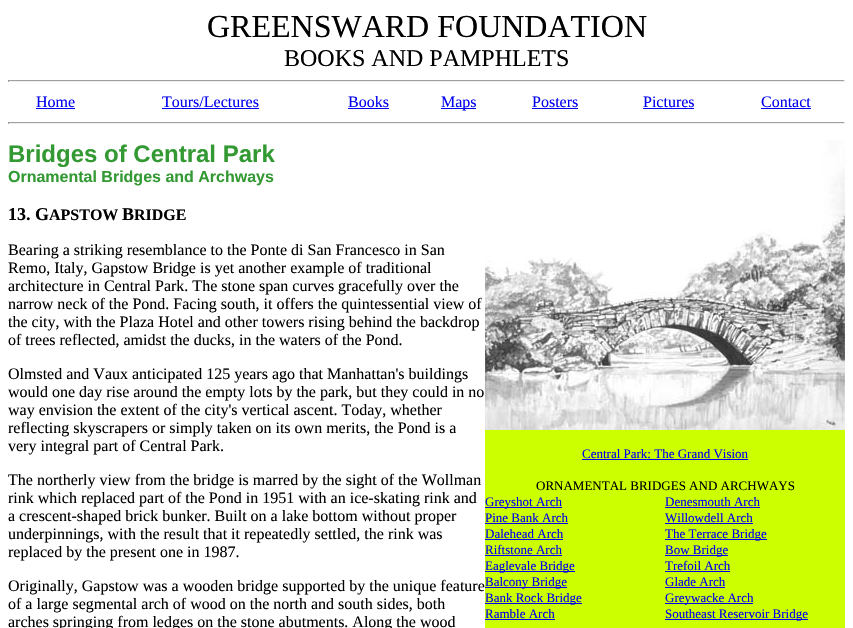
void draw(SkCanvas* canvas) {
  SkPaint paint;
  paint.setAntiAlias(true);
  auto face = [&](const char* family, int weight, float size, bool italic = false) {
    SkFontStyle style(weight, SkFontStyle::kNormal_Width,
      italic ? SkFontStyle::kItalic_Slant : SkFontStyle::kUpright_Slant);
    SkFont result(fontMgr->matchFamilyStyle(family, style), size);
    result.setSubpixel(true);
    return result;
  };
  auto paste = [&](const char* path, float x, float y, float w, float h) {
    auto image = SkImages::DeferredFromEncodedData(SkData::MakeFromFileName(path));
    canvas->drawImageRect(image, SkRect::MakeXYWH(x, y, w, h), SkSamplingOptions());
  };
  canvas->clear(0xffffffff);
  {
    const struct { float x, y, w, h; SkColor color; } items[] = {
      {8, 80, 837, 1, 0xff9f9f9f},
      {844, 80, 1, 2, 0xffeeeeee},
      {8, 81, 837, 1, 0xffeeeeee},
      {8, 80, 1, 2, 0xff9f9f9f},
      {36, 108, 39, 1, 0xff0000ee},
      {162, 108, 97, 1, 0xff0000ee},
      {348, 108, 41, 1, 0xff0000ee},
      {441, 108, 35, 1, 0xff0000ee},
      {532, 108, 46, 1, 0xff0000ee},
      {643, 108, 51, 1, 0xff0000ee},
      {761, 108, 50, 1, 0xff0000ee},
      {8, 122, 837, 1, 0xff9f9f9f},
      {844, 122, 1, 2, 0xffeeeeee},
      {8, 123, 837, 1, 0xffeeeeee},
      {8, 122, 1, 2, 0xff9f9f9f},
      {485, 430, 360, 198, 0xffccff00},
    };
    for (auto [x, y, w, h, color] : items) {
      paint.setColor(color);
      canvas->drawRect(SkRect::MakeXYWH(x, y, w, h), paint);
    }
  }
  paste("img/1.png", 485, 140, 360, 290);
  {
    const struct { float x, y, w, h; SkColor color; } items[] = {
      {582, 459, 166, 1, 0xff0000ee},
      {485, 507, 77, 1, 0xff0000ee},
      {485, 523, 83, 1, 0xff0000ee},
      {485, 539, 78, 1, 0xff0000ee},
      {485, 555, 77, 1, 0xff0000ee},
      {485, 571, 90, 1, 0xff0000ee},
      {485, 587, 82, 1, 0xff0000ee},
      {485, 603, 97, 1, 0xff0000ee},
      {485, 619, 70, 1, 0xff0000ee},
      {665, 507, 95, 1, 0xff0000ee},
      {665, 523, 88, 1, 0xff0000ee},
      {665, 539, 102, 1, 0xff0000ee},
      {665, 555, 63, 1, 0xff0000ee},
      {665, 571, 65, 1, 0xff0000ee},
      {665, 587, 60, 1, 0xff0000ee},
      {665, 603, 88, 1, 0xff0000ee},
      {665, 619, 143, 1, 0xff0000ee},
    };
    for (auto [x, y, w, h, color] : items) {
      paint.setColor(color);
      canvas->drawRect(SkRect::MakeXYWH(x, y, w, h), paint);
    }
  }
  auto f0 = face("Liberation Serif", 400, 32);
  paint.setColor(0xff000000);
  canvas->drawString("GREENSWARD FOUNDATION", 207, 37, f0, paint);
  auto f1 = face("Liberation Serif", 400, 24);
  canvas->drawString("BOOKS AND PAMPHLETS", 284, 66, f1, paint);
  auto f2 = face("Liberation Serif", 400, 16);
  paint.setColor(0xff0000ee);
  {
    const struct { const char* s; float x, y; } items[] = {
      {"Home", 36, 107},
      {"Tours/Lectures", 162, 107},
      {"Books", 348, 107},
      {"Maps", 441, 107},
      {"Posters", 532, 107},
      {"Pictures", 643, 107},
      {"Contact", 761, 107},
    };
    for (auto [s, x, y] : items) {
      canvas->drawString(s, x, y, f2, paint);
    }
  }
  auto f3 = face("Liberation Sans", 700, 24);
  paint.setColor(0xff339933);
  canvas->drawString("Bridges of Central Park", 8, 162, f3, paint);
  auto f4 = face("Liberation Sans", 700, 16);
  canvas->drawString("Ornamental Bridges and Archways", 8, 182, f4, paint);
  auto f5 = face("Liberation Serif", 700, 18);
  paint.setColor(0xff000000);
  canvas->drawString("13. G", 8, 220, f5, paint);
  auto f6 = face("Liberation Serif", 700, 16);
  canvas->drawString("APSTOW", 49, 220, f6, paint);
  canvas->drawString("B", 122, 220, f5, paint);
  canvas->drawString("RIDGE", 134, 220, f6, paint);
  auto f7 = face("Liberation Serif", 400, 13);
  paint.setColor(0xff0000ee);
  canvas->drawString("Central Park: The Grand Vision", 582, 458, f7, paint);
  paint.setColor(0xff000000);
  canvas->drawString("ORNAMENTAL BRIDGES AND ARCHWAYS", 536, 490, f7, paint);
  paint.setColor(0xff0000ee);
  {
    const struct { const char* s; float x, y; } items[] = {
      {"Greyshot Arch", 485, 506},
      {"Pine Bank Arch", 485, 522},
      {"Dalehead Arch", 485, 538},
      {"Riftstone Arch", 485, 554},
      {"Eaglevale Bridge", 485, 570},
      {"Balcony Bridge", 485, 586},
      {"Bank Rock Bridge", 485, 602},
      {"Ramble Arch", 485, 618},
      {"Denesmouth Arch", 665, 506},
      {"Willowdell Arch", 665, 522},
      {"The Terrace Bridge", 665, 538},
      {"Bow Bridge", 665, 554},
      {"Trefoil Arch", 665, 570},
      {"Glade Arch", 665, 586},
      {"Greywacke Arch", 665, 602},
      {"Southeast Reservoir Bridge", 665, 618},
    };
    for (auto [s, x, y] : items) {
      canvas->drawString(s, x, y, f7, paint);
    }
  }
  paint.setColor(0xff000000);
  {
    const struct { const char* s; float x, y; } items[] = {
      {"Bearing a striking resemblance to the Ponte di San Francesco in San", 8, 255},
      {"Remo, Italy, Gapstow Bridge is yet another example of traditional", 8, 273},
      {"architecture in Central Park. The stone span curves gracefully over the", 8, 291},
      {"narrow neck of the Pond. Facing south, it offers the quintessential view of", 8, 309},
      {"the city, with the Plaza Hotel and other towers rising behind the backdrop", 8, 327},
      {"of trees reflected, amidst the ducks, in the waters of the Pond.", 8, 345},
      {"Olmsted and Vaux anticipated 125 years ago that Manhattan's buildings", 8, 379},
      {"would one day rise around the empty lots by the park, but they could in no", 8, 397},
      {"way envision the extent of the city's vertical ascent. Today, whether", 8, 415},
      {"reflecting skyscrapers or simply taken on its own merits, the Pond is a", 8, 433},
      {"very integral part of Central Park.", 8, 451},
      {"The northerly view from the bridge is marred by the sight of the Wollman", 8, 485},
      {"rink which replaced part of the Pond in 1951 with an ice-skating rink and", 8, 503},
      {"a crescent-shaped brick bunker. Built on a lake bottom without proper", 8, 521},
      {"underpinnings, with the result that it repeatedly settled, the rink was", 8, 539},
      {"replaced by the present one in 1987.", 8, 557},
      {"Originally, Gapstow was a wooden bridge supported by the unique feature", 8, 591},
      {"of a large segmental arch of wood on the north and south sides, both", 8, 609},
      {"arches springing from ledges on the stone abutments. Along the wood", 8, 627},
    };
    for (auto [s, x, y] : items) {
      canvas->drawString(s, x, y, f2, paint);
    }
  }
}
